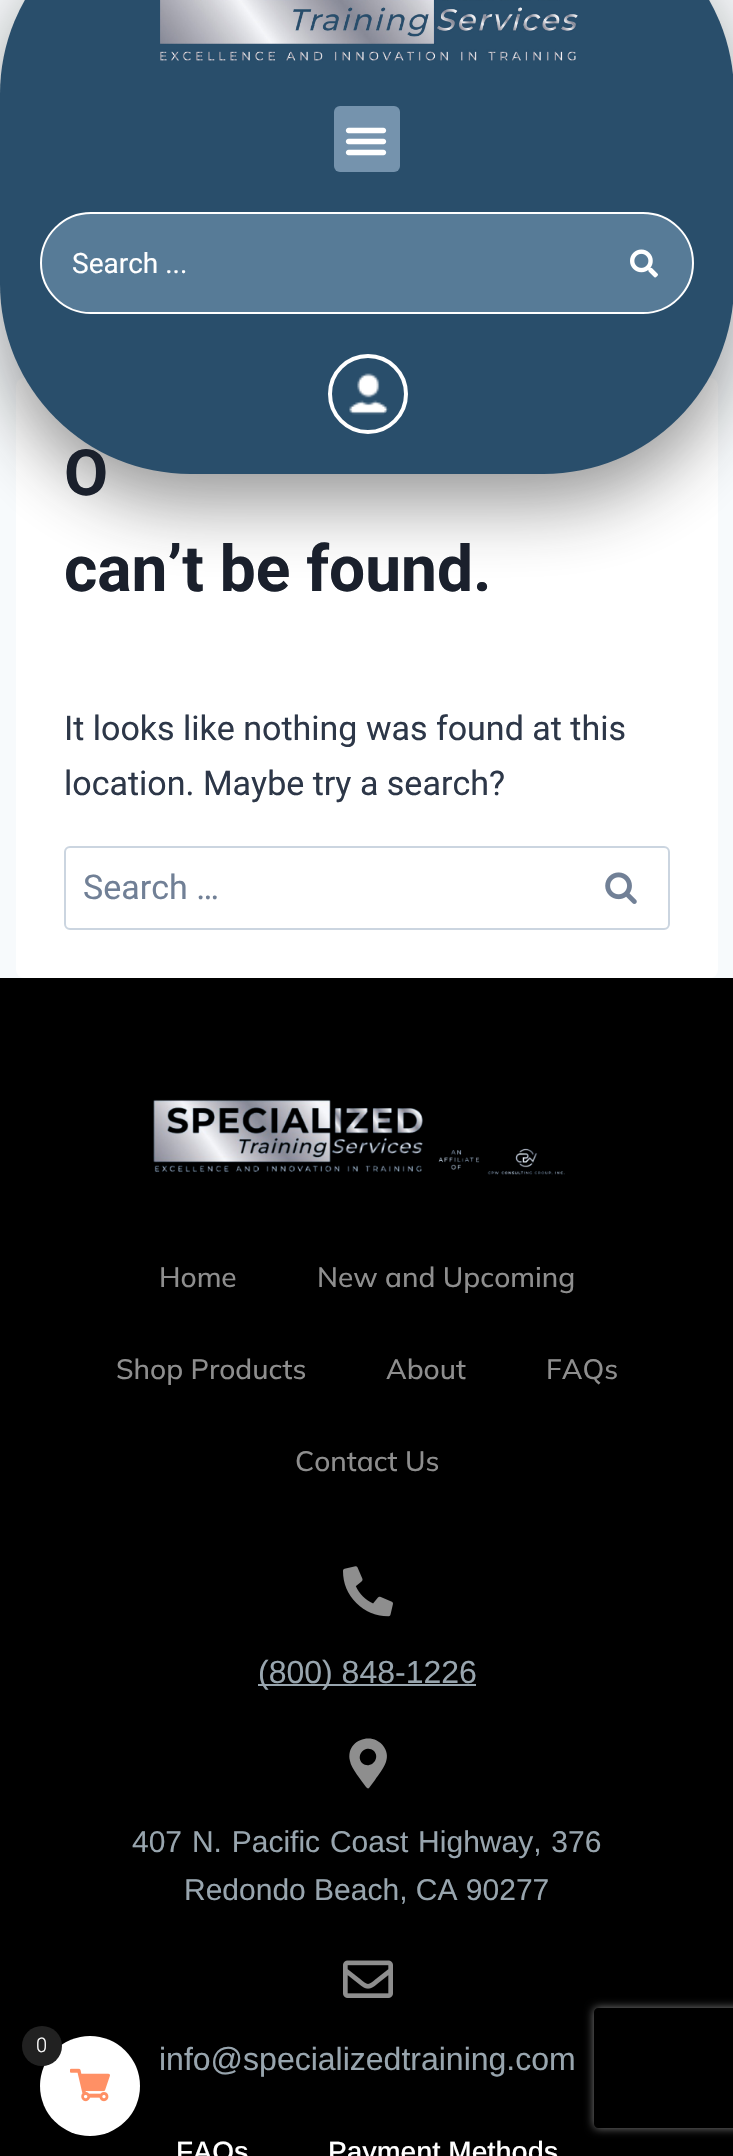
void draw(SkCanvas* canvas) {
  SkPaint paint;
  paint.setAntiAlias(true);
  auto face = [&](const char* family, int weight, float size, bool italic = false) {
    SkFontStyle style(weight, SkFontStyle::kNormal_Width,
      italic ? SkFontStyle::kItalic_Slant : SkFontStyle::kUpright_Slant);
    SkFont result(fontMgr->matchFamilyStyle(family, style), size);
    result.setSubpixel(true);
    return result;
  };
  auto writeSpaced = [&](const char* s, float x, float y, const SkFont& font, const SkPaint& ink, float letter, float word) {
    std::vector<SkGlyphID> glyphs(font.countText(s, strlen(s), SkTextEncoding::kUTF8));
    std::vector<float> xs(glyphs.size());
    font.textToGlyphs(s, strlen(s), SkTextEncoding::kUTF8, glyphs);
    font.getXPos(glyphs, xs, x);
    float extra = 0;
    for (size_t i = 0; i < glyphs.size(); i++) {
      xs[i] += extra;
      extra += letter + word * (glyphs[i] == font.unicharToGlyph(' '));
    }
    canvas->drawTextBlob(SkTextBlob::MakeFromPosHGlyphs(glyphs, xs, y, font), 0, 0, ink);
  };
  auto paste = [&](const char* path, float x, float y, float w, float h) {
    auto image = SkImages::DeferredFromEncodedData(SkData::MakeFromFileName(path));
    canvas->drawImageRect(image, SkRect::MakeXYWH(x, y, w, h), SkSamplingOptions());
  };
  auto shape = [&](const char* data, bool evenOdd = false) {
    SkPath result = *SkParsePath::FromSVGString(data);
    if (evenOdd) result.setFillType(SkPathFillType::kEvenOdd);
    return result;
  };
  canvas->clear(0xfff7fafc);
  paint.setColor(0xff000000);
  canvas->drawRect(SkRect::MakeXYWH(0, 978, 733, 1178), paint);
  paint.setColor(0xffffffff);
  canvas->drawCircle(90, 2086, 50, paint);
  paint.setColor(0xff212121);
  canvas->drawCircle(42, 2046, 20, paint);
  paste("img/1.png", 70, 2068, 40, 34);
  paint.setColor(0xffffffff);
  canvas->drawRoundRect(SkRect::MakeXYWH(16, 378, 702, 600), 8, 8, paint);
  paint.setColor(0x731b1b1b);
  paint.setMaskFilter(SkMaskFilter::MakeBlur(kNormal_SkBlurStyle, 35));
  canvas->drawRoundRect(SkRect::MakeXYWH(0, -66, 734, 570), 190, 190, paint);
  paint.setMaskFilter(nullptr);
  paint.setStroke(true);
  paint.setStrokeWidth(2);
  paint.setColor(0xffcbd5e0);
  canvas->drawRoundRect(SkRect::MakeXYWH(65, 847, 604, 82), 5, 5, paint);
  paste("img/6.png", 605, 872, 32, 32);
  paste("img/7.png", 153, 1099, 412, 76);
  paste("img/8.png", 343, 1566, 50, 51);
  paint.setStroke(false);
  paint.setColor(0xff98a5ae);
  canvas->drawRect(SkRect::MakeXYWH(258, 1684, 218, 2), paint);
  paint.setColor(0xff8e8e8e);
  canvas->drawPath(shape("M366 1787C362 1781 351 1768 350 1761C345 1741 372 1730 384 1747C392 1759 382 1770 375 1780L369 1788C368 1789 367 1788 366 1787ZM362 1763C370 1770 381 1759 374 1751C366 1744 355 1755 362 1763Z"), paint);
  paste("img/9.png", 343, 1960, 50, 38);
  canvas->save();
  canvas->clipPath(shape("M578 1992H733V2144H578ZM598 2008H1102C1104 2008 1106 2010 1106 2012V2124C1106 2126 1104 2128 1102 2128H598C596 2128 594 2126 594 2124V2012C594 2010 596 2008 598 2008Z", true), true);
  paint.setColor(0xff808080);
  paint.setMaskFilter(SkMaskFilter::MakeBlur(kNormal_SkBlurStyle, 5));
  canvas->drawRoundRect(SkRect::MakeXYWH(594, 2008, 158, 120), 4, 4, paint);
  paint.setMaskFilter(nullptr);
  canvas->restore();
  auto f0 = face("Roboto", 300, 20);
  paint.setColor(0xffffffff);
  canvas->drawString("0", 36, 2052, f0, paint);
  auto f1 = face("Roboto", 700, 64);
  paint.setColor(0xff1a202c);
  canvas->drawString("O", 64, 495, f1, paint);
  paint.setColor(0xff294e6b);
  canvas->drawRoundRect(SkRect::MakeXYWH(0, -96, 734, 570), 190, 190, paint);
  paint.setStroke(true);
  paint.setStrokeWidth(4);
  paint.setColor(0xffffffff);
  canvas->drawCircle(368, 394, 38, paint);
  paste("img/5.png", 349, 373, 40, 42);
  paint.setStroke(false);
  paint.setColor(0xff577b97);
  canvas->drawRoundRect(SkRect::MakeXYWH(41, 213, 652, 100), 50, 50, paint);
  paint.setStroke(true);
  paint.setStrokeWidth(2);
  paint.setColor(0xffffffff);
  canvas->drawRoundRect(SkRect::MakeXYWH(41, 213, 652, 100), 50, 50, paint);
  auto f2 = face("Roboto", 400, 28);
  paint.setStroke(false);
  canvas->drawString("Search ...", 72, 273, f2, paint);
  paste("img/4.png", 630, 249, 28, 29);
  paint.setColor(0xff7593ad);
  canvas->drawRoundRect(SkRect::MakeXYWH(334, 106, 66, 66), 6, 6, paint);
  paste("img/3.png", 345, 127, 42, 29);
  paste("img/2.png", 160, 0, 418, 61);
  paint.setColor(0xff1a202c);
  canvas->drawString("can’t be found.", 64, 591, f1, paint);
  auto f3 = face("Roboto", 400, 34);
  paint.setColor(0xff2d3748);
  canvas->drawString("It looks like nothing was found at this", 64, 740, f3, paint);
  canvas->drawString("location. Maybe try a search?", 64, 795, f3, paint);
  paint.setColor(0xff718096);
  canvas->drawString("Search …", 83, 899, f3, paint);
  auto f4 = face("Mulish", 500, 28);
  paint.setColor(0xff8e8e8e);
  {
    const struct { const char* s; float x, y; } items[] = {
      {"Home", 159, 1287},
      {"New and Upcoming", 317, 1287},
      {"Shop Products", 116, 1379},
      {"About", 386, 1379},
      {"FAQs", 546, 1379},
      {"Contact Us", 295, 1471},
    };
    for (auto [s, x, y] : items) {
      canvas->drawString(s, x, y, f4, paint);
    }
  }
  auto f5 = face("Arimo", 400, 32);
  paint.setColor(0xff98a5ae);
  canvas->drawString("(800) 848-1226", 258, 1683, f5, paint);
  auto f6 = face("Arimo", 400, 30);
  writeSpaced("407 N. Pacific Coast Highway, 376", 132, 1852, f6, paint, 0, 1.5f);
  canvas->drawString("Redondo Beach, CA 90277", 184, 1900, f6, paint);
  canvas->drawString("info@specializedtraining.com", 159, 2070, f5, paint);
  auto f7 = face("Arimo", 500, 28);
  paint.setColor(0xffffffff);
  canvas->drawString("FAQs", 176, 2161, f7, paint);
  canvas->drawString("Payment Methods", 328, 2161, f7, paint);
}
